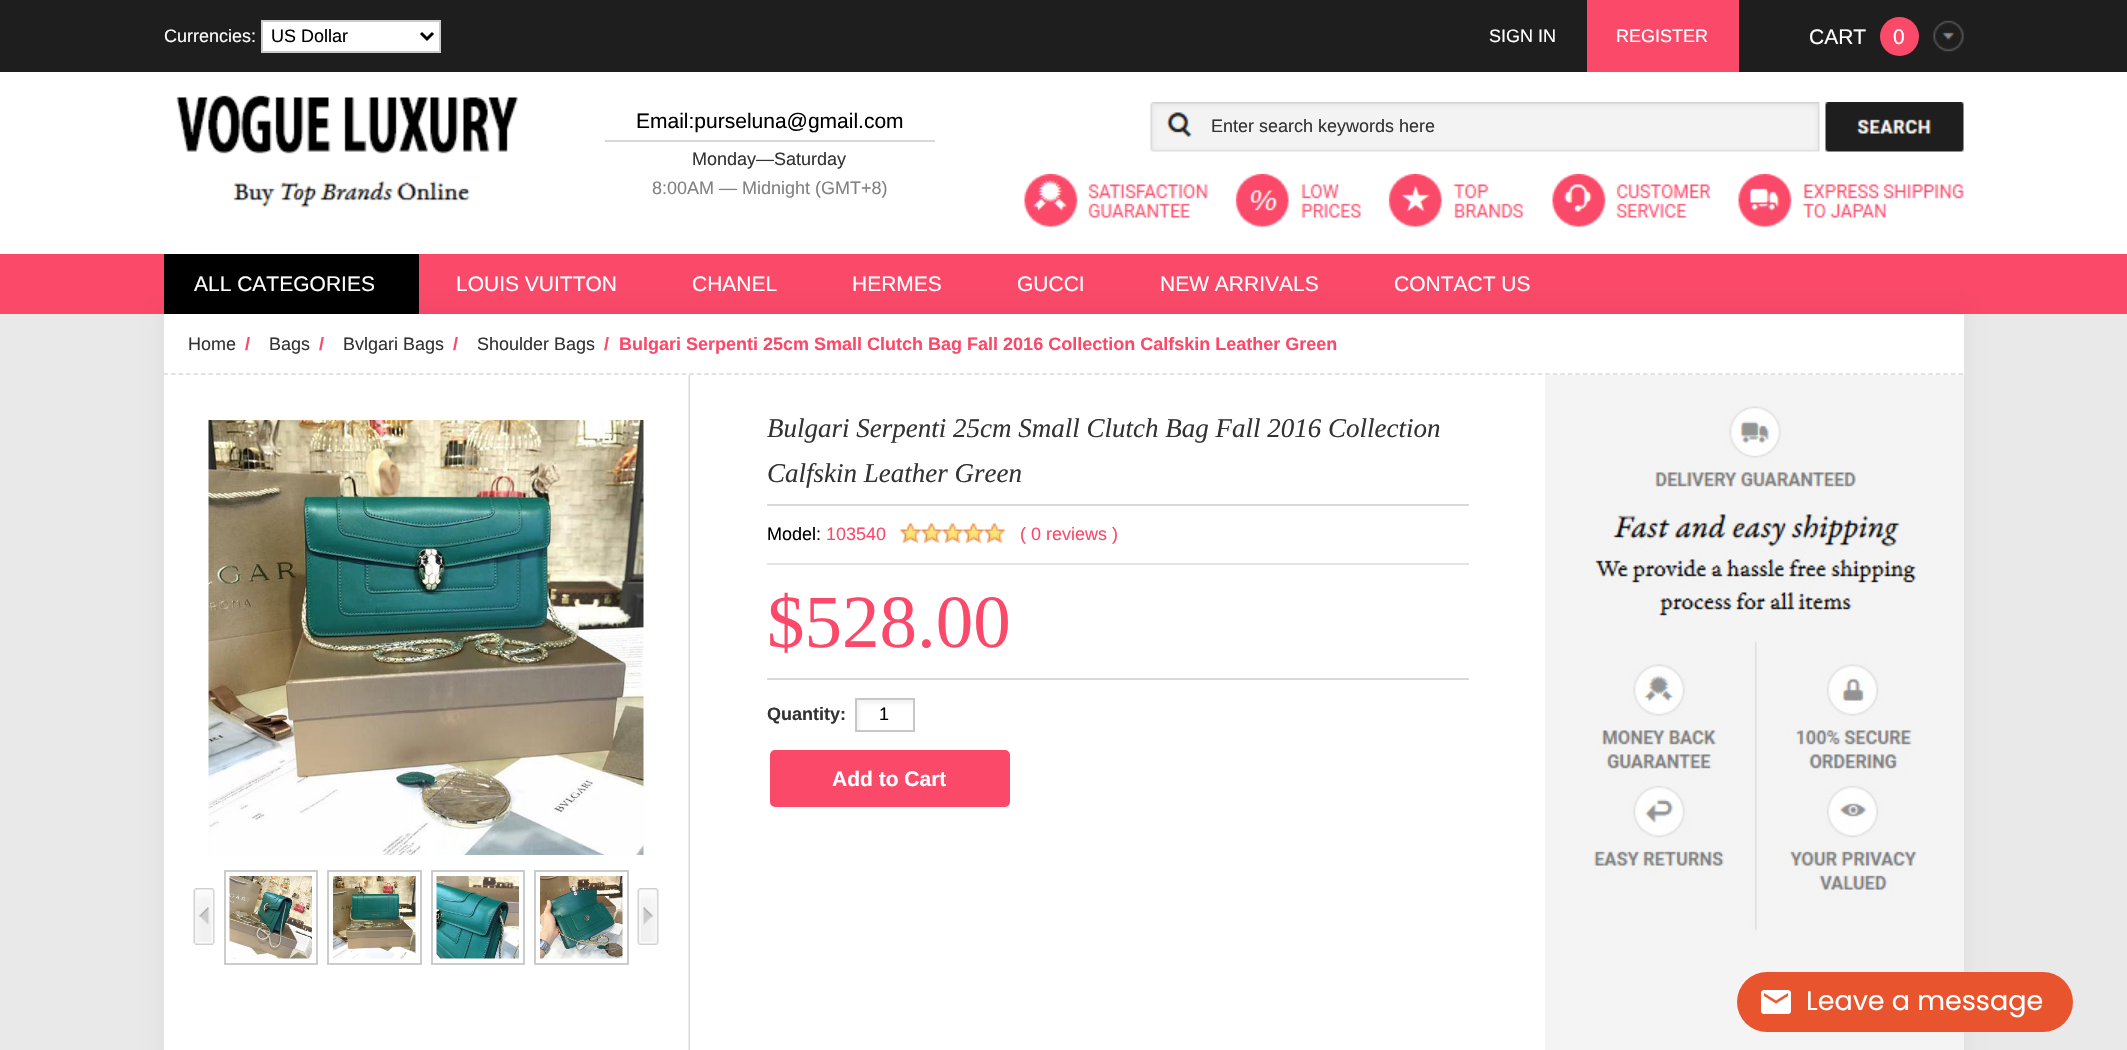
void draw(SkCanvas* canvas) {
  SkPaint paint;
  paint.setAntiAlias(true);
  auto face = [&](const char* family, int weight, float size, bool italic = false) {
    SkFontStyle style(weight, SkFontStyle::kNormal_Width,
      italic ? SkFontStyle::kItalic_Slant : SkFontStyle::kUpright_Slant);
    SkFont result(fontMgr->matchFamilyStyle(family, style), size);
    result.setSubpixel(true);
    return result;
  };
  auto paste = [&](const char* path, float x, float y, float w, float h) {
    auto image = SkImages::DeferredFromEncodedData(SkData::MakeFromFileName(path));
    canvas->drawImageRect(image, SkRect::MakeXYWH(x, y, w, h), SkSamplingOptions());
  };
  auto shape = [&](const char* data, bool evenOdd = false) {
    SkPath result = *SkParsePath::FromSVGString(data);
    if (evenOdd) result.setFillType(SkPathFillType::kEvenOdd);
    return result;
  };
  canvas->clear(0xffffffff);
  paint.setColor(0xff1e1e1e);
  canvas->drawRect(SkRect::MakeXYWH(0, 0, 2127, 72), paint);
  paint.setColor(0xffffffff);
  canvas->drawRect(SkRect::MakeXYWH(262, 21, 178, 31), paint);
  paint.setStroke(true);
  paint.setStrokeWidth(2);
  paint.setColor(0xffcccccc);
  canvas->drawRect(SkRect::MakeXYWH(262, 21, 178, 31), paint);
  paint.setStrokeWidth(3);
  paint.setColor(0xff000000);
  canvas->drawPath(shape("M421 33L427 39L433 33"), paint);
  paint.setStroke(false);
  paint.setColor(0xfffa4969);
  canvas->drawRect(SkRect::MakeXYWH(1587, 0, 152, 72), paint);
  paste("img/1.png", 1933, 20, 31, 32);
  canvas->drawCircle(1899.5f, 36.5f, 19.5f, paint);
  paste("img/2.png", 176, 95, 342, 113);
  paint.setColor(0xffd9d9d9);
  canvas->drawRect(SkRect::MakeXYWH(605, 140, 330, 2), paint);
  paste("img/3.png", 1150, 102, 670, 50);
  paste("img/4.png", 1825, 102, 139, 50);
  paste("img/5.png", 1024, 174, 940, 53);
  paint.setColor(0xfffa4969);
  canvas->drawRect(SkRect::MakeXYWH(0, 254, 2127, 60), paint);
  paint.setColor(0xffe9e9e9);
  canvas->drawRect(SkRect::MakeXYWH(0, 314, 2127, 736), paint);
  paint.setColor(0x0d000000);
  paint.setMaskFilter(SkMaskFilter::MakeBlur(kNormal_SkBlurStyle, 7.5f));
  canvas->drawRect(SkRect::MakeXYWH(162, 312, 1803, 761), paint);
  paint.setMaskFilter(nullptr);
  paint.setColor(0xff000000);
  canvas->drawRect(SkRect::MakeXYWH(164, 254, 255, 60), paint);
  paint.setColor(0xffffffff);
  canvas->drawRect(SkRect::MakeXYWH(164, 314, 1800, 736), paint);
  paint.setStroke(true);
  paint.setStrokeWidth(1.5f);
  paint.setColor(0xffd9d9d9);
  paint.setPathEffect(SkDashPathEffect::Make({{4.5f, 3.01f}}, 0));
  canvas->drawPath(shape("M163.5 374H1963.5"), paint);
  paint.setPathEffect(nullptr);
  paste("img/6.png", 688, 375, 2, 675);
  paste("img/7.png", 208, 420, 436, 435);
  paste("img/8.png", 193, 888, 22, 57);
  paint.setStrokeWidth(2);
  paint.setColor(0xffcccccc);
  canvas->drawRect(SkRect::MakeXYWH(225, 871, 92, 93), paint);
  paste("img/9.png", 229, 876, 83, 83);
  canvas->drawRect(SkRect::MakeXYWH(328, 871, 93, 93), paint);
  paste("img/10.png", 333, 876, 83, 83);
  canvas->drawRect(SkRect::MakeXYWH(432, 871, 92, 93), paint);
  paste("img/11.png", 436, 876, 83, 83);
  canvas->drawRect(SkRect::MakeXYWH(535, 871, 93, 93), paint);
  paste("img/12.png", 540, 876, 83, 83);
  paste("img/13.png", 637, 888, 22, 57);
  paint.setStroke(false);
  paint.setColor(0xffd9d9d9);
  canvas->drawRect(SkRect::MakeXYWH(767, 504, 702, 2), paint);
  paint.setColor(0xffe4e4e4);
  canvas->drawRect(SkRect::MakeXYWH(767, 563, 702, 2), paint);
  paste("img/14.png", 900, 523, 105, 20);
  paint.setColor(0xffd9d9d9);
  canvas->drawRect(SkRect::MakeXYWH(767, 678, 702, 2), paint);
  paste("img/15.png", 857, 700, 56, 30);
  paint.setStroke(true);
  paint.setColor(0xffc8c7c7);
  canvas->drawRect(SkRect::MakeXYWH(856, 699, 58, 32), paint);
  paint.setStroke(false);
  paint.setColor(0xfffa4969);
  canvas->drawRoundRect(SkRect::MakeXYWH(771, 751, 238, 55), 4, 4, paint);
  paint.setStroke(true);
  canvas->drawRoundRect(SkRect::MakeXYWH(771, 751, 238, 55), 4, 4, paint);
  paint.setStroke(false);
  paint.setColor(0xfff4f4f4);
  canvas->drawRect(SkRect::MakeXYWH(1545, 375, 419, 675), paint);
  paste("img/16.png", 1593, 406, 324, 602);
  paint.setColor(0xffe7542d);
  canvas->drawRoundRect(SkRect::MakeXYWH(1737, 972, 336, 60), 30, 30, paint);
  paste("img/17.png", 1761, 990, 30, 24);
  auto f0 = face("Liberation Sans", 400, 18);
  paint.setColor(0xffffffff);
  canvas->drawString("Currencies:", 164, 42, f0, paint);
  paint.setColor(0xff000000);
  canvas->drawString("US Dollar", 271, 42, f0, paint);
  paint.setColor(0xffffffff);
  canvas->drawString("SIGN IN", 1489, 42, f0, paint);
  canvas->drawString("REGISTER", 1616, 42, f0, paint);
  auto f1 = face("Liberation Sans", 400, 21);
  canvas->drawString("CART", 1809, 44, f1, paint);
  canvas->drawString("0", 1893, 44, f1, paint);
  paint.setColor(0xff000000);
  canvas->drawString("Email:purseluna@gmail.com", 636, 128, f1, paint);
  paint.setColor(0xff333333);
  canvas->drawString("Monday—Saturday", 692, 165, f0, paint);
  paint.setColor(0xff818181);
  canvas->drawString("8:00AM — Midnight (GMT+8)", 652, 194, f0, paint);
  paint.setColor(0xff333333);
  canvas->drawString("Enter search keywords here", 1211, 132, f0, paint);
  paint.setColor(0xffffffff);
  {
    const struct { const char* s; float x, y; } items[] = {
      {"ALL CATEGORIES", 194, 291},
      {"LOUIS VUITTON", 456, 291},
      {"CHANEL", 692, 291},
      {"HERMES", 852, 291},
      {"GUCCI", 1017, 291},
      {"NEW ARRIVALS", 1160, 291},
      {"CONTACT US", 1394, 291},
    };
    for (auto [s, x, y] : items) {
      canvas->drawString(s, x, y, f1, paint);
    }
  }
  paint.setColor(0xff333333);
  canvas->drawString("Home", 188, 350, f0, paint);
  auto f2 = face("Liberation Sans", 700, 18);
  paint.setColor(0xfffa4969);
  canvas->drawString("/", 245, 350, f2, paint);
  paint.setColor(0xff333333);
  canvas->drawString("Bags", 269, 350, f0, paint);
  paint.setColor(0xfffa4969);
  canvas->drawString("/", 319, 350, f2, paint);
  paint.setColor(0xff333333);
  canvas->drawString("Bvlgari Bags", 343, 350, f0, paint);
  paint.setColor(0xfffa4969);
  canvas->drawString("/", 453, 350, f2, paint);
  paint.setColor(0xff333333);
  canvas->drawString("Shoulder Bags", 477, 350, f0, paint);
  paint.setColor(0xfffa4969);
  canvas->drawString("/  Bulgari Serpenti 25cm Small Clutch Bag Fall 2016 Collection Calfskin Leather Green", 604, 350, f2, paint);
  auto f3 = face("Liberation Serif", 400, 27, true);
  paint.setColor(0xff333333);
  canvas->drawString("Bulgari Serpenti 25cm Small Clutch Bag Fall 2016 Collection", 767, 437, f3, paint);
  canvas->drawString("Calfskin Leather Green", 767, 482, f3, paint);
  paint.setColor(0xff000000);
  canvas->drawString("Model:", 767, 540, f0, paint);
  paint.setColor(0xfffa4969);
  canvas->drawString("103540", 826, 540, f0, paint);
  canvas->drawString("( 0 reviews )", 1020, 540, f0, paint);
  auto f4 = face("Liberation Serif", 400, 75);
  canvas->drawString("$528.00", 767, 647, f4, paint);
  paint.setColor(0xff333333);
  canvas->drawString("Quantity:", 767, 720, f2, paint);
  paint.setColor(0xff000000);
  canvas->drawString("1", 879, 720, f0, paint);
  auto f5 = face("Liberation Sans", 700, 21);
  paint.setColor(0xffffffff);
  canvas->drawString("Add to Cart", 832, 786, f5, paint);
  auto f6 = face("Poppins", 400, 27);
  canvas->drawString("Leave a message", 1806, 1010, f6, paint);
}
